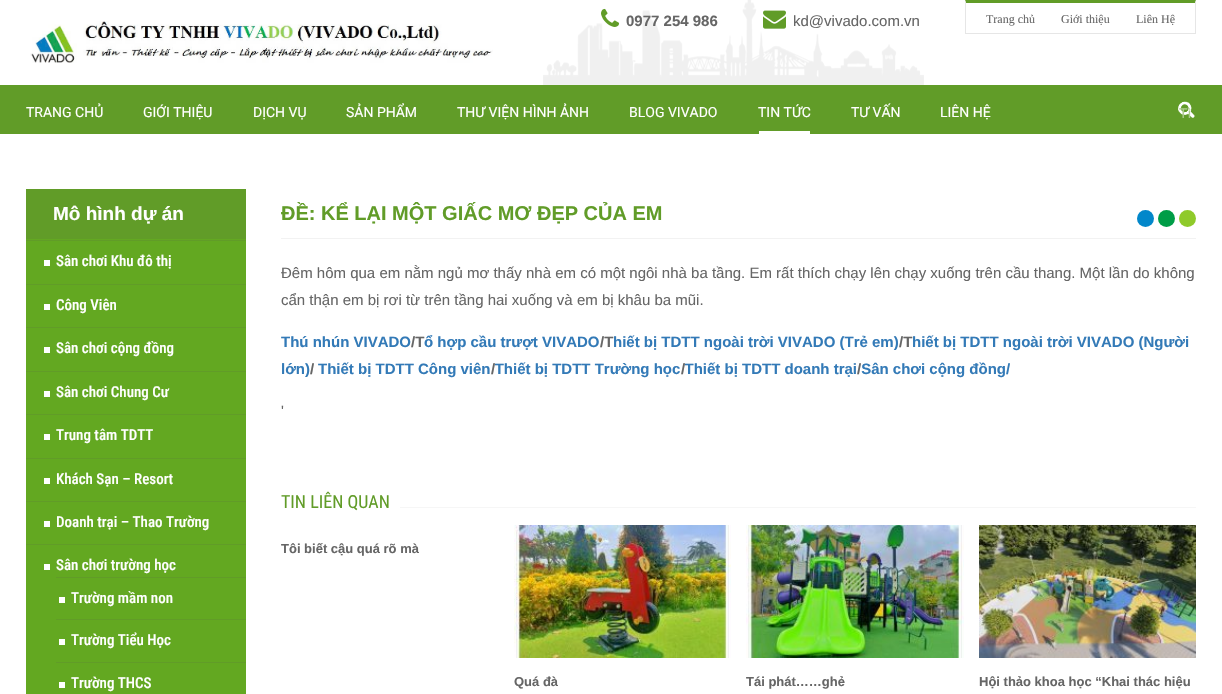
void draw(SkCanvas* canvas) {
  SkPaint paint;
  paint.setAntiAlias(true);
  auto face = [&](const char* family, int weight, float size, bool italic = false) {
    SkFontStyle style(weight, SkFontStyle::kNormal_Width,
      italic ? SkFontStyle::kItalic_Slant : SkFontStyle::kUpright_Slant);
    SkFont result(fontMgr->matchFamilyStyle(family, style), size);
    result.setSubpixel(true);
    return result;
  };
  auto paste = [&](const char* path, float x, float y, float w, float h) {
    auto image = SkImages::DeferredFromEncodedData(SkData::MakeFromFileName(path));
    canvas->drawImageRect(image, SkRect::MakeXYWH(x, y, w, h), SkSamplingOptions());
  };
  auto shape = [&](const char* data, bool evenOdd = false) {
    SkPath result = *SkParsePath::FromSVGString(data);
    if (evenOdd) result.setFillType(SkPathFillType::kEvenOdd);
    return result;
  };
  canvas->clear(0xffffffff);
  paste("img/1.png", 543, 0, 381, 85);
  paste("img/2.png", 30, 21, 463, 42);
  paste("img/3.png", 601, 8, 19, 19);
  paste("img/4.png", 763, 10, 23, 19);
  paint.setColor(0xff619c28);
  canvas->drawPath(shape("M965 0H1196L1195 3H966Z"), paint);
  paint.setColor(0xffe6e6e6);
  canvas->drawPath(shape("M1196 0V34L1195 33V3Z"), paint);
  canvas->drawRect(SkRect::MakeXYWH(965, 33, 231, 1), paint);
  canvas->drawPath(shape("M965 34V0L966 3V33Z"), paint);
  paint.setColor(0xff619c28);
  canvas->drawRect(SkRect::MakeXYWH(0, 85, 1222, 49), paint);
  paint.setColor(0xffffffff);
  canvas->drawRect(SkRect::MakeXYWH(759, 131, 51, 3), paint);
  paste("img/5.png", 1178, 101, 17, 17);
  {
    const struct { float x, y, w, h; SkColor color; } items[] = {
      {26, 189, 220, 50, 0xff619c28},
      {26, 239, 220, 1, 0xff63a821},
      {26, 241, 220, 453, 0xff63a821},
      {26, 240, 220, 1, 0xff619c28},
      {44, 260, 6, 6, 0xffffffff},
      {26, 284, 220, 1, 0xff619c28},
      {44, 304, 6, 6, 0xffffffff},
      {26, 327, 220, 1, 0xff619c28},
      {44, 347, 6, 6, 0xffffffff},
      {26, 371, 220, 1, 0xff619c28},
      {44, 391, 6, 6, 0xffffffff},
      {26, 414, 220, 1, 0xff619c28},
      {44, 434, 6, 6, 0xffffffff},
      {26, 458, 220, 1, 0xff619c28},
      {44, 478, 6, 6, 0xffffffff},
      {26, 501, 220, 1, 0xff619c28},
      {44, 521, 6, 6, 0xffffffff},
      {26, 544, 220, 1, 0xff619c28},
      {44, 564, 6, 6, 0xffffffff},
      {56, 577, 190, 1, 0xff619c28},
      {59, 597, 6, 6, 0xffffffff},
      {56, 619, 190, 1, 0xff619c28},
      {59, 639, 6, 6, 0xffffffff},
      {56, 662, 190, 1, 0xff619c28},
      {59, 682, 6, 6, 0xffffffff},
      {281, 238, 915, 1, 0xfff2f2f2},
    };
    for (auto [x, y, w, h, color] : items) {
      paint.setColor(color);
      canvas->drawRect(SkRect::MakeXYWH(x, y, w, h), paint);
    }
  }
  paint.setColor(0xff0287ca);
  canvas->drawCircle(1145.5f, 218.5f, 8.5f, paint);
  paint.setColor(0xff009d47);
  canvas->drawCircle(1166.5f, 218.5f, 8.5f, paint);
  paint.setColor(0xff8fca2a);
  canvas->drawCircle(1187.5f, 218.5f, 8.5f, paint);
  paint.setColor(0xfff6f6f6);
  canvas->drawRect(SkRect::MakeXYWH(400, 507, 796, 1), paint);
  paste("img/6.png", 514, 525, 217, 133);
  paste("img/7.png", 746, 525, 218, 133);
  paste("img/8.png", 979, 525, 217, 133);
  auto f0 = face("Liberation Sans", 700, 15);
  paint.setColor(0xff666666);
  canvas->drawString("0977 254 986", 626, 26, f0, paint);
  auto f1 = face("Liberation Sans", 400, 15);
  canvas->drawString("kd@vivado.com.vn", 793, 26, f1, paint);
  auto f2 = face("Liberation Serif", 400, 12);
  {
    const struct { const char* s; float x, y; } items[] = {
      {"Trang chủ", 986, 23},
      {"Giới thiệu", 1061, 23},
      {"Liên Hệ", 1136, 23},
    };
    for (auto [s, x, y] : items) {
      canvas->drawString(s, x, y, f2, paint);
    }
  }
  auto f3 = face("Roboto", 400, 14);
  paint.setColor(0xffffffff);
  {
    const struct { const char* s; float x, y; } items[] = {
      {"TRANG CHỦ", 26, 117},
      {"GIỚI THIỆU", 143, 117},
      {"DỊCH VỤ", 253, 117},
      {"SẢN PHẨM", 346, 117},
      {"THƯ VIỆN HÌNH ẢNH", 457, 117},
      {"BLOG VIVADO", 629, 117},
      {"TIN TỨC", 758, 117},
      {"TƯ VẤN", 851, 117},
      {"LIÊN HỆ", 940, 117},
    };
    for (auto [s, x, y] : items) {
      canvas->drawString(s, x, y, f3, paint);
    }
  }
  auto f4 = face("Liberation Sans", 400, 14);
  paint.setColor(0xffabca8c);
  canvas->drawString("Tì", 1179, 118, f4, paint);
  auto f5 = face("Liberation Sans", 700, 19);
  paint.setColor(0xffffffff);
  canvas->drawString("Mô hình dự án", 53, 220, f5, paint);
  auto f6 = face("Roboto Condensed", 500, 15);
  {
    const struct { const char* s; float x, y; } items[] = {
      {"Sân chơi Khu đô thị", 56, 266},
      {"Công Viên", 56, 310},
      {"Sân chơi cộng đồng", 56, 353},
      {"Sân chơi Chung Cư", 56, 397},
      {"Trung tâm TDTT", 56, 440},
      {"Khách Sạn – Resort", 56, 484},
      {"Doanh trại – Thao Trường", 56, 527},
      {"Sân chơi trường học", 56, 570},
      {"Trường mầm non", 71, 603},
      {"Trường Tiểu Học", 71, 645},
      {"Trường THCS", 71, 688},
    };
    for (auto [s, x, y] : items) {
      canvas->drawString(s, x, y, f6, paint);
    }
  }
  auto f7 = face("Liberation Sans", 700, 20);
  paint.setColor(0xff619c28);
  canvas->drawString("ĐỀ: KỂ LẠI MỘT GIẤC MƠ ĐẸP CỦA EM", 281, 220, f7, paint);
  paint.setColor(0xff666666);
  canvas->drawString("Đêm hôm qua em nằm ngủ mơ thấy nhà em có một ngôi nhà ba tầng. Em rất thích chạy lên chạy xuống trên cầu thang. Một lần do không", 281, 278, f1, paint);
  canvas->drawString("cẩn thận em bị rơi từ trên tầng hai xuống và em bị khâu ba mũi.", 281, 305, f1, paint);
  paint.setColor(0xff337ab7);
  canvas->drawString("Thú nhún VIVADO", 281, 347, f0, paint);
  paint.setColor(0xff666666);
  canvas->drawString("/T", 411, 347, f0, paint);
  paint.setColor(0xff337ab7);
  canvas->drawString("ổ hợp cầu trượt VIVADO", 424, 347, f0, paint);
  paint.setColor(0xff666666);
  canvas->drawString("/T", 600, 347, f0, paint);
  paint.setColor(0xff337ab7);
  canvas->drawString("hiết bị TDTT ngoài trời VIVADO (Trẻ em)", 613, 347, f0, paint);
  paint.setColor(0xff666666);
  canvas->drawString("/T", 899, 347, f0, paint);
  paint.setColor(0xff337ab7);
  canvas->drawString("hiết bị TDTT ngoài trời VIVADO (Người", 912, 347, f0, paint);
  canvas->drawString("lớn)", 281, 374, f0, paint);
  paint.setColor(0xff666666);
  canvas->drawString("/", 310, 374, f0, paint);
  paint.setColor(0xff337ab7);
  canvas->drawString("Thiết bị TDTT Công viên Thiết bị TDTT Trường học Thiết bị TDTT doanh trại Sân chơi cộng đồng/", 318, 374, f0, paint);
  paint.setColor(0xff666666);
  {
    const struct { const char* s; float x, y; } items[] = {
      {"/", 491, 374},
      {"/", 681, 374},
      {"/", 857, 374},
    };
    for (auto [s, x, y] : items) {
      canvas->drawString(s, x, y, f0, paint);
    }
  }
  canvas->drawString("'", 281, 416, f1, paint);
  auto f8 = face("Roboto Condensed", 400, 18);
  paint.setColor(0xff619c28);
  canvas->drawString("TIN LIÊN QUAN", 281, 508, f8, paint);
  auto f9 = face("Liberation Sans", 700, 13);
  paint.setColor(0xff666666);
  {
    const struct { const char* s; float x, y; } items[] = {
      {"Tôi biết cậu quá rõ mà", 281, 553},
      {"Quá đà", 514, 686},
      {"Tái phát……ghẻ", 746, 686},
      {"Hội thảo khoa học “Khai thác hiệu", 979, 686},
    };
    for (auto [s, x, y] : items) {
      canvas->drawString(s, x, y, f9, paint);
    }
  }
}
